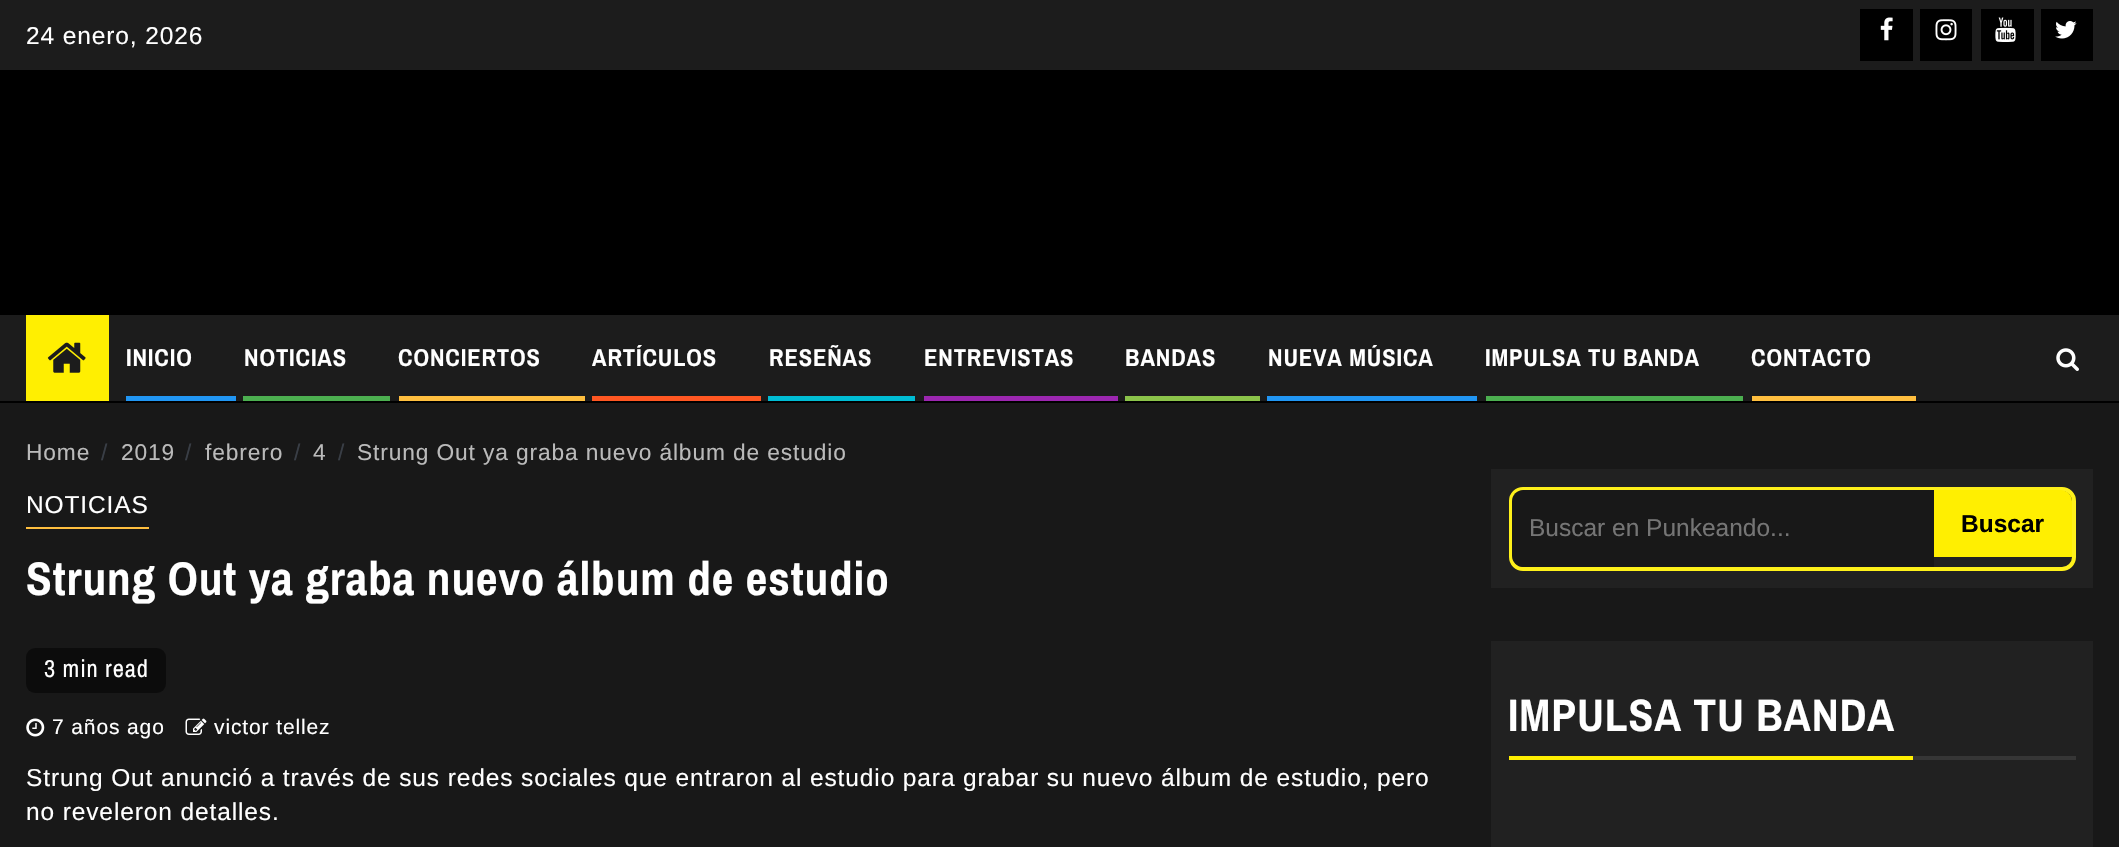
void draw(SkCanvas* canvas) {
  SkPaint paint;
  paint.setAntiAlias(true);
  auto face = [&](const char* family, int weight, float size, bool italic = false) {
    SkFontStyle style(weight, SkFontStyle::kNormal_Width,
      italic ? SkFontStyle::kItalic_Slant : SkFontStyle::kUpright_Slant);
    SkFont result(fontMgr->matchFamilyStyle(family, style), size);
    result.setSubpixel(true);
    return result;
  };
  auto writeSpaced = [&](const char* s, float x, float y, const SkFont& font, const SkPaint& ink, float letter, float word) {
    std::vector<SkGlyphID> glyphs(font.countText(s, strlen(s), SkTextEncoding::kUTF8));
    std::vector<float> xs(glyphs.size());
    font.textToGlyphs(s, strlen(s), SkTextEncoding::kUTF8, glyphs);
    font.getXPos(glyphs, xs, x);
    float extra = 0;
    for (size_t i = 0; i < glyphs.size(); i++) {
      xs[i] += extra;
      extra += letter + word * (glyphs[i] == font.unicharToGlyph(' '));
    }
    canvas->drawTextBlob(SkTextBlob::MakeFromPosHGlyphs(glyphs, xs, y, font), 0, 0, ink);
  };
  auto paste = [&](const char* path, float x, float y, float w, float h) {
    auto image = SkImages::DeferredFromEncodedData(SkData::MakeFromFileName(path));
    canvas->drawImageRect(image, SkRect::MakeXYWH(x, y, w, h), SkSamplingOptions());
  };
  auto shape = [&](const char* data, bool evenOdd = false) {
    SkPath result = *SkParsePath::FromSVGString(data);
    if (evenOdd) result.setFillType(SkPathFillType::kEvenOdd);
    return result;
  };
  canvas->clear(0xff181818);
  {
    const struct { float x, y, w, h; SkColor color; } items[] = {
      {0, 70, 2119, 333, 0xff000000},
      {0, 0, 2119, 70, 0xff1c1c1c},
      {1860, 9, 53, 52, 0xff000000},
    };
    for (auto [x, y, w, h, color] : items) {
      paint.setColor(color);
      canvas->drawRect(SkRect::MakeXYWH(x, y, w, h), paint);
    }
  }
  paste("img/1.png", 1880, 17, 13, 24);
  canvas->drawRect(SkRect::MakeXYWH(1920, 9, 52, 52), paint);
  paste("img/2.png", 1935, 19, 22, 22);
  canvas->drawRect(SkRect::MakeXYWH(1981, 9, 53, 52), paint);
  paste("img/3.png", 1995, 17, 21, 25);
  canvas->drawRect(SkRect::MakeXYWH(2041, 9, 52, 52), paint);
  paste("img/4.png", 2055, 21, 22, 18);
  paint.setColor(0xff1c1c1c);
  canvas->drawRect(SkRect::MakeXYWH(0, 315, 2119, 86), paint);
  paint.setColor(0xffffef01);
  canvas->drawRect(SkRect::MakeXYWH(26, 315, 83, 86), paint);
  paste("img/5.png", 47, 342, 39, 31);
  {
    const struct { float x, y, w, h; SkColor color; } items[] = {
      {126, 396, 110, 5, 0xff2196f3},
      {243, 396, 147, 5, 0xff4caf50},
      {399, 396, 186, 5, 0xffffbf3f},
      {592, 396, 169, 5, 0xffff5722},
      {768, 396, 147, 5, 0xff00bcd4},
      {924, 396, 194, 5, 0xff9c27b0},
      {1125, 396, 135, 5, 0xff8bc34a},
      {1267, 396, 210, 5, 0xff2196f3},
      {1486, 396, 257, 5, 0xff4caf50},
      {1752, 396, 164, 5, 0xffffbf3f},
    };
    for (auto [x, y, w, h, color] : items) {
      paint.setColor(color);
      canvas->drawRect(SkRect::MakeXYWH(x, y, w, h), paint);
    }
  }
  paste("img/6.png", 2056, 348, 23, 23);
  canvas->drawRect(SkRect::MakeXYWH(26, 527, 123, 2), paint);
  paint.setColor(0xff0c0c0c);
  canvas->drawRoundRect(SkRect::MakeXYWH(26, 648, 140, 45), 9, 9, paint);
  paste("img/7.png", 26, 718, 19, 19);
  paste("img/8.png", 185, 718, 22, 17);
  paint.setColor(0xff212121);
  canvas->drawRect(SkRect::MakeXYWH(1491, 469, 602, 119), paint);
  paint.setStroke(true);
  paint.setStrokeWidth(4);
  paint.setColor(0xfffef01a);
  canvas->drawRoundRect(SkRect::MakeXYWH(1511, 489, 563, 80), 12, 12, paint);
  paint.setStroke(false);
  paint.setColor(0xff181818);
  canvas->drawPath(shape("M1523 490H1934V567H1523C1517 567 1512 562 1512 556V501C1512 495 1517 490 1523 490Z"), paint);
  canvas->save();
  canvas->clipPath(shape("M1523 490H2061C2067 490 2072 495 2072 501V556C2072 562 2067 567 2061 567H1523C1517 567 1512 562 1512 556V501C1512 495 1517 490 1523 490Z"), true);
  paint.setColor(0xffffef01);
  canvas->drawPath(shape("M1934 490H2061C2067 490 2072 495 2072 501V557H1934Z"), paint);
  canvas->restore();
  {
    const struct { float x, y, w, h; SkColor color; } items[] = {
      {1491, 641, 602, 206, 0xff212121},
      {1509, 756, 404, 4, 0xffffef01},
      {1913, 756, 163, 4, 0xff363636},
    };
    for (auto [x, y, w, h, color] : items) {
      paint.setColor(color);
      canvas->drawRect(SkRect::MakeXYWH(x, y, w, h), paint);
    }
  }
  auto f0 = face("Arimo", 400, 24.5f);
  paint.setColor(0xffffffff);
  writeSpaced("24 enero, 2026", 26, 44, f0, paint, 0.88f, 0);
  auto f1 = face("Archivo Narrow", 700, 24.5f);
  {
    const struct { const char* s; float x, y; } items[] = {
      {"INICIO", 126, 366},
      {"NOTICIAS", 244, 366},
      {"CONCIERTOS", 398, 366},
      {"ARTÍCULOS", 592, 366},
      {"RESEÑAS", 769, 366},
      {"ENTREVISTAS", 924, 366},
      {"BANDAS", 1125, 366},
      {"NUEVA MÚSICA", 1268, 366},
      {"IMPULSA TU BANDA", 1485, 366},
      {"CONTACTO", 1751, 366},
    };
    for (auto [s, x, y] : items) {
      writeSpaced(s, x, y, f1, paint, 0.88f, 0);
    }
  }
  auto f2 = face("Arimo", 400, 22.75f);
  paint.setColor(0xffbababa);
  writeSpaced("Home", 26, 460, f2, paint, 0.88f, 0);
  paint.setColor(0xff393e46);
  writeSpaced("/", 101, 460, f2, paint, 0.88f, 0);
  paint.setColor(0xffbababa);
  writeSpaced("2019", 121, 460, f2, paint, 0.88f, 0);
  paint.setColor(0xff393e46);
  writeSpaced("/", 185, 460, f2, paint, 0.88f, 0);
  paint.setColor(0xffbababa);
  writeSpaced("febrero", 205, 460, f2, paint, 0.88f, 0);
  paint.setColor(0xff393e46);
  writeSpaced("/", 294, 460, f2, paint, 0.88f, 0);
  paint.setColor(0xffbababa);
  writeSpaced("4", 313, 460, f2, paint, 0.88f, 0);
  paint.setColor(0xff393e46);
  writeSpaced("/", 338, 460, f2, paint, 0.88f, 0);
  paint.setColor(0xffbababa);
  writeSpaced("Strung Out ya graba nuevo álbum de estudio", 357, 460, f2, paint, 0.88f, 0);
  paint.setColor(0xffffffff);
  writeSpaced("NOTICIAS", 26, 513, f0, paint, 0.88f, 0);
  auto f3 = face("Archivo Narrow", 700, 47.25f);
  writeSpaced("Strung Out ya graba nuevo álbum de estudio", 26, 595, f3, paint, 0.88f, 0);
  auto f4 = face("Archivo Narrow", 400, 24.5f);
  writeSpaced("3 min read", 44, 677, f4, paint, 0.88f, 0);
  auto f5 = face("Arimo", 400, 21);
  writeSpaced("7 años ago", 52, 734, f5, paint, 0.88f, 0);
  writeSpaced("victor tellez", 214, 734, f5, paint, 0.88f, 0);
  writeSpaced("Strung Out anunció a través de sus redes sociales que entraron al estudio para grabar su nuevo álbum de estudio, pero", 26, 786, f0, paint, 0.88f, 0);
  writeSpaced("no reveleron detalles.", 26, 820, f0, paint, 0.88f, 0);
  paint.setColor(0xff757575);
  canvas->drawString("Buscar en Punkeando...", 1529, 536, f0, paint);
  auto f6 = face("Arimo", 700, 24.5f);
  paint.setColor(0xff000000);
  canvas->drawString("Buscar", 1961, 532, f6, paint);
  auto f7 = face("Archivo Narrow", 700, 45.5f);
  paint.setColor(0xffffffff);
  writeSpaced("IMPULSA TU BANDA", 1508, 731, f7, paint, 0.88f, 0);
}
